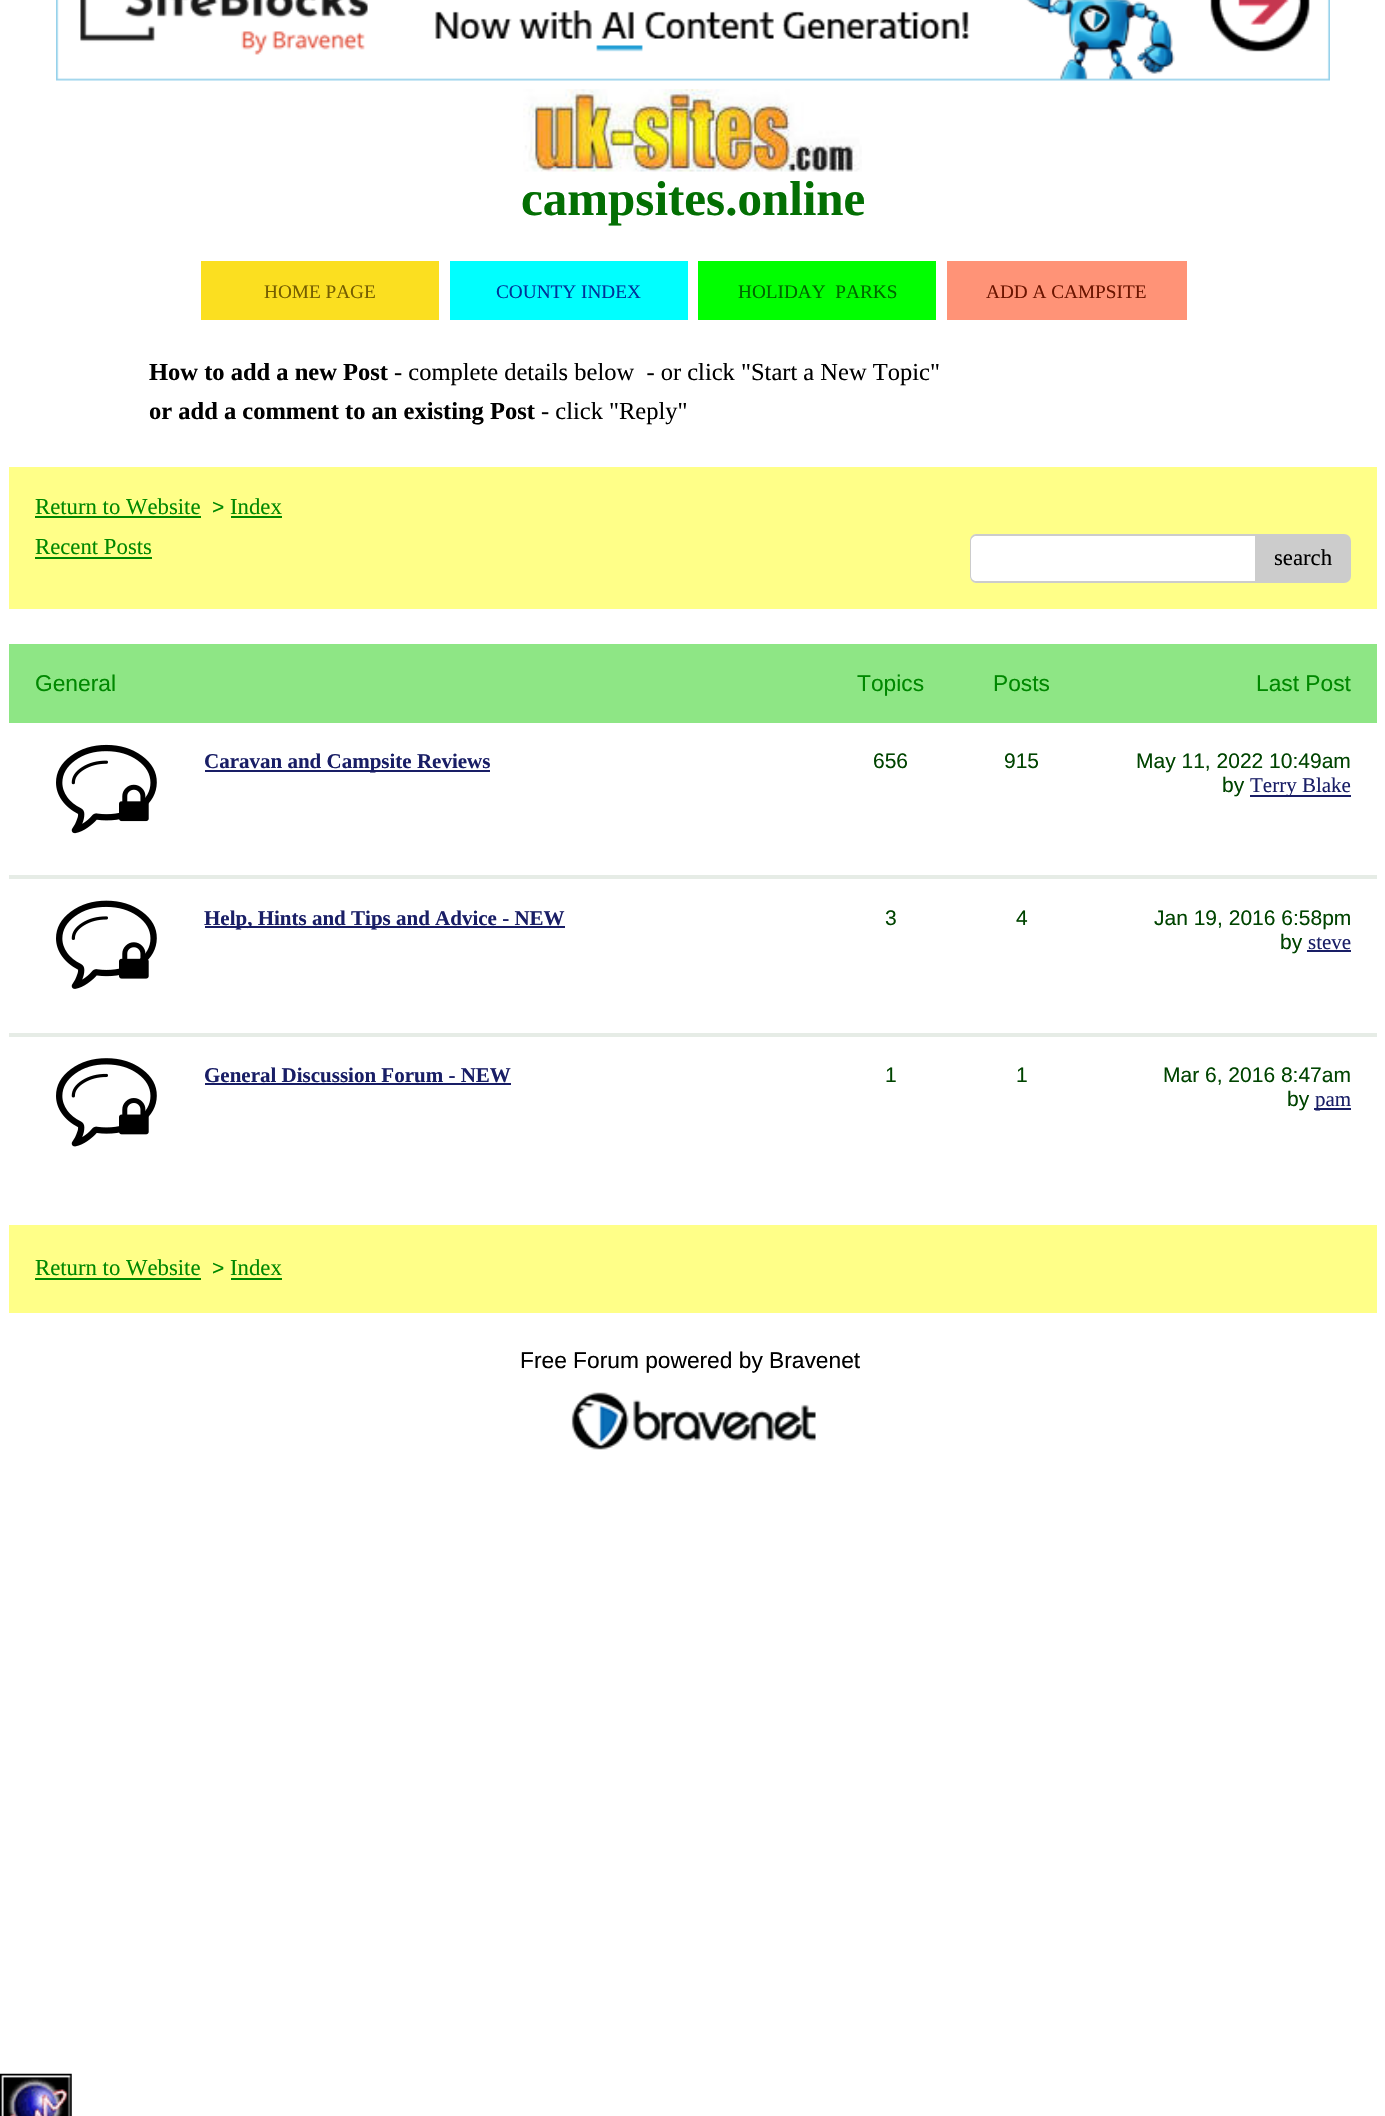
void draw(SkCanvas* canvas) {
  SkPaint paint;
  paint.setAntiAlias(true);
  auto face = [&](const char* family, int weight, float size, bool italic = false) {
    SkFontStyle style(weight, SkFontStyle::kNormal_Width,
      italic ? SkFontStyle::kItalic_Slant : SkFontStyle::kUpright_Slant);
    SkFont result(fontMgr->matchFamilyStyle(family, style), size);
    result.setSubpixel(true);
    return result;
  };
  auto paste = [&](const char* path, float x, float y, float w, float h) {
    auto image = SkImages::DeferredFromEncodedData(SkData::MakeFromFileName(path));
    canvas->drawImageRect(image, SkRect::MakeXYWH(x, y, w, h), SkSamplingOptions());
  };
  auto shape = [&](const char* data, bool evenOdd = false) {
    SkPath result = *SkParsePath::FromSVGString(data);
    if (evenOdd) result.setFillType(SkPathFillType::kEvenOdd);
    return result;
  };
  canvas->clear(0xffffffff);
  paste("img/1.png", 56, 0, 1274, 81);
  paste("img/2.png", 523, 89, 339, 83);
  {
    const struct { float x, y, w, h; SkColor color; } items[] = {
      {201, 261, 238, 59, 0xfffbdf20},
      {450, 261, 238, 59, 0xff00ffff},
      {698, 261, 238, 59, 0xff00ff00},
      {947, 261, 240, 59, 0xffff9377},
      {9, 467, 1368, 142, 0xffffff88},
      {35, 516, 166, 2, 0xff008800},
      {231, 516, 51, 2, 0xff008800},
      {35, 557, 117, 2, 0xff008800},
    };
    for (auto [x, y, w, h, color] : items) {
      paint.setColor(color);
      canvas->drawRect(SkRect::MakeXYWH(x, y, w, h), paint);
    }
  }
  paint.setColor(0xffffffff);
  canvas->drawRoundRect(SkRect::MakeXYWH(970, 534, 364, 49), 7, 7, paint);
  paint.setColor(0xffcccccc);
  canvas->drawPath(shape("M976 534H1326C1330 534 1334 537 1334 541V576C1334 580 1330 583 1326 583H976C973 583 970 580 970 576V541C970 537 973 534 976 534ZM976 536H1326C1330 536 1334 538 1334 541V576C1334 579 1330 581 1326 581H976C974 581 971 579 971 576V541C971 538 974 536 976 536Z", true), paint);
  canvas->drawPath(shape("M1256 535H1344C1347.5 535 1350 537.5 1350 541V576C1350 579.5 1347.5 582 1344 582H1256Z"), paint);
  paint.setStroke(true);
  paint.setStrokeWidth(2);
  canvas->drawPath(shape("M1256 535H1344C1347.5 535 1350 537.5 1350 541V576C1350 579.5 1347.5 582 1344 582H1256Z"), paint);
  paint.setStroke(false);
  paint.setColor(0xff8ee685);
  canvas->drawRect(SkRect::MakeXYWH(9, 644, 1368, 79), paint);
  paint.setColor(0xffe6ece6);
  canvas->drawRect(SkRect::MakeXYWH(9, 875, 1368, 4), paint);
  paste("img/3.png", 56, 744, 101, 90);
  paste("img/4.png", 119, 784, 30, 38);
  {
    const struct { float x, y, w, h; SkColor color; } items[] = {
      {205, 770, 285, 2, 0xff191e66},
      {1250, 795, 101, 2, 0xff191e66},
      {9, 1033, 1368, 4, 0xffe6ece6},
    };
    for (auto [x, y, w, h, color] : items) {
      paint.setColor(color);
      canvas->drawRect(SkRect::MakeXYWH(x, y, w, h), paint);
    }
  }
  paste("img/5.png", 56, 900, 101, 89);
  paste("img/6.png", 119, 942, 30, 37);
  paint.setColor(0xff191e66);
  canvas->drawRect(SkRect::MakeXYWH(205, 926, 360, 2), paint);
  canvas->drawRect(SkRect::MakeXYWH(1307, 950, 44, 2), paint);
  paste("img/7.png", 56, 1058, 101, 89);
  paste("img/8.png", 119, 1098, 30, 37);
  {
    const struct { float x, y, w, h; SkColor color; } items[] = {
      {205, 1083, 306, 2, 0xff191e66},
      {1314, 1108, 37, 2, 0xff191e66},
      {9, 1225, 1368, 88, 0xffffff88},
      {35, 1278, 166, 2, 0xff008800},
      {231, 1278, 51, 2, 0xff008800},
    };
    for (auto [x, y, w, h, color] : items) {
      paint.setColor(color);
      canvas->drawRect(SkRect::MakeXYWH(x, y, w, h), paint);
    }
  }
  paste("img/9.png", 571, 1392, 245, 58);
  paste("img/10.png", 0, 2073, 72, 43);
  auto f0 = face("Liberation Serif", 700, 49);
  paint.setColor(0xff036f03);
  canvas->drawString("campsites.online", 521, 215, f0, paint);
  auto f1 = face("Liberation Serif", 400, 19.25f);
  paint.setColor(0xff755e00);
  canvas->drawString("HOME PAGE", 264, 298, f1, paint);
  paint.setColor(0xff003399);
  canvas->drawString("COUNTY INDEX", 496, 298, f1, paint);
  paint.setColor(0xff006600);
  canvas->drawString("HOLIDAY  PARKS", 738, 298, f1, paint);
  paint.setColor(0xff6c1500);
  canvas->drawString("ADD A CAMPSITE", 986, 298, f1, paint);
  auto f2 = face("Liberation Serif", 700, 24.5f);
  paint.setColor(0xff000000);
  canvas->drawString("How to add a new Post", 149, 380, f2, paint);
  auto f3 = face("Liberation Serif", 400, 24.5f);
  canvas->drawString("- complete details below  - or click \"Start a New Topic\"", 394, 380, f3, paint);
  canvas->drawString("or add a comment to an existing Post", 149, 419, f2, paint);
  canvas->drawString("- click \"Reply\"", 541, 419, f3, paint);
  auto f4 = face("Liberation Serif", 400, 22.75f);
  paint.setColor(0xff008800);
  canvas->drawString("Return to Website", 35, 514, f4, paint);
  auto f5 = face("Liberation Sans", 400, 21);
  canvas->drawString(">", 212, 514, f5, paint);
  canvas->drawString("Index", 230, 514, f4, paint);
  canvas->drawString("Recent Posts", 35, 554, f4, paint);
  paint.setColor(0xff000000);
  canvas->drawString("search", 1274, 565, f4, paint);
  auto f6 = face("Liberation Sans", 400, 22.75f);
  paint.setColor(0xff008800);
  {
    const struct { const char* s; float x, y; } items[] = {
      {"General", 35, 691},
      {"Topics", 857, 691},
      {"Posts", 993, 691},
      {"Last Post", 1256, 691},
    };
    for (auto [s, x, y] : items) {
      canvas->drawString(s, x, y, f6, paint);
    }
  }
  auto f7 = face("Liberation Serif", 700, 21);
  paint.setColor(0xff191e66);
  canvas->drawString("Caravan and Campsite Reviews", 204, 768, f7, paint);
  paint.setColor(0xff004400);
  {
    const struct { const char* s; float x, y; } items[] = {
      {"656", 873, 768},
      {"915", 1004, 768},
      {"May 11, 2022 10:49am", 1136, 768},
      {"by", 1222, 792},
    };
    for (auto [s, x, y] : items) {
      canvas->drawString(s, x, y, f5, paint);
    }
  }
  auto f8 = face("Liberation Serif", 400, 21);
  paint.setColor(0xff191e66);
  canvas->drawString("Terry Blake", 1250, 792, f8, paint);
  canvas->drawString("Help, Hints and Tips and Advice - NEW", 204, 925, f7, paint);
  paint.setColor(0xff004400);
  {
    const struct { const char* s; float x, y; } items[] = {
      {"3", 885, 925},
      {"4", 1016, 925},
      {"Jan 19, 2016 6:58pm", 1154, 925},
      {"by", 1280, 949},
    };
    for (auto [s, x, y] : items) {
      canvas->drawString(s, x, y, f5, paint);
    }
  }
  paint.setColor(0xff191e66);
  canvas->drawString("steve", 1308, 949, f8, paint);
  canvas->drawString("General Discussion Forum - NEW", 204, 1082, f7, paint);
  paint.setColor(0xff004400);
  {
    const struct { const char* s; float x, y; } items[] = {
      {"1", 885, 1082},
      {"1", 1016, 1082},
      {"Mar 6, 2016 8:47am", 1163, 1082},
      {"by", 1287, 1106},
    };
    for (auto [s, x, y] : items) {
      canvas->drawString(s, x, y, f5, paint);
    }
  }
  paint.setColor(0xff191e66);
  canvas->drawString("pam", 1315, 1106, f8, paint);
  paint.setColor(0xff008800);
  canvas->drawString("Return to Website", 35, 1275, f4, paint);
  canvas->drawString(">", 212, 1275, f5, paint);
  canvas->drawString("Index", 230, 1275, f4, paint);
  paint.setColor(0xff000000);
  canvas->drawString("Free Forum powered by Bravenet", 520, 1368, f6, paint);
}
